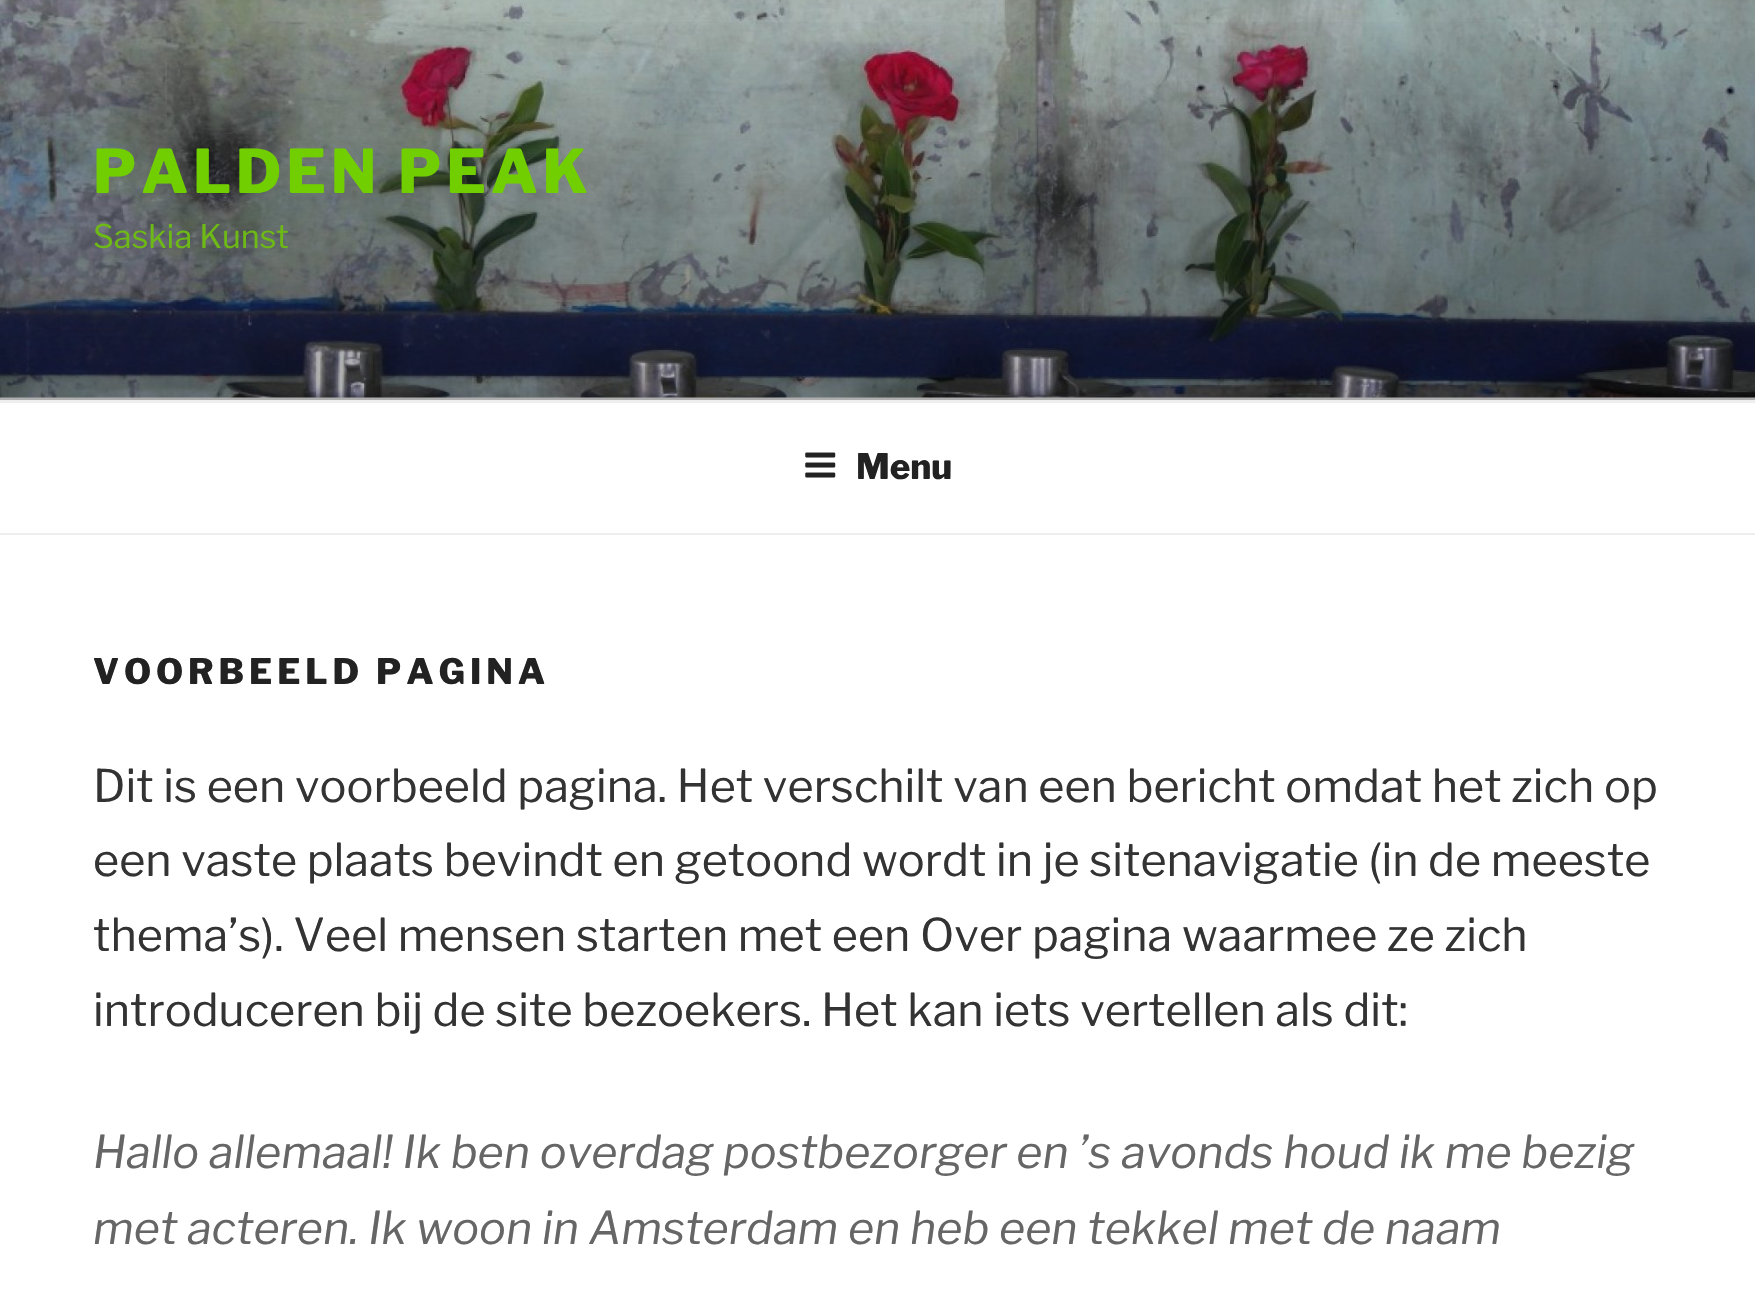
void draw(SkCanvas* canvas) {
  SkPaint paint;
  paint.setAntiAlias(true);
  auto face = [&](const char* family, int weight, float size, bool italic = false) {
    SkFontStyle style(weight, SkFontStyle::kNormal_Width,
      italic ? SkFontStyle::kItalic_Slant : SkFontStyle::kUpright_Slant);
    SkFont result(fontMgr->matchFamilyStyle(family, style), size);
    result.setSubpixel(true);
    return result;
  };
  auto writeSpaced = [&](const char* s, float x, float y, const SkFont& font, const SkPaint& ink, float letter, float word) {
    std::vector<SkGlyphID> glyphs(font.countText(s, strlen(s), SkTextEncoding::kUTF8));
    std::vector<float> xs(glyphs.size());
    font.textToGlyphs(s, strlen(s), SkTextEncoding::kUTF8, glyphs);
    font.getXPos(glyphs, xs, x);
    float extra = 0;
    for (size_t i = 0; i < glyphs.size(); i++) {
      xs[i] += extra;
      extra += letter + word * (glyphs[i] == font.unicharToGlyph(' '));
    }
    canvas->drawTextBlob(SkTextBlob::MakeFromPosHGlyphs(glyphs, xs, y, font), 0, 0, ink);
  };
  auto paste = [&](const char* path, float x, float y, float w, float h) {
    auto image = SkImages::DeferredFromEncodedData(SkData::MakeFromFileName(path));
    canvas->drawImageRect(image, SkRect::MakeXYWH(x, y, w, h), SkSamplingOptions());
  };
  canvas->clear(0xfffafafa);
  paste("img/1.png", 0, 0, 1755, 398);
  {
    const SkColor colors[] = {0x00000000, 0x4d000000, 0x4d000000};
    const float stops[] = {0, 0.75f, 1};
    const SkPoint ends[] = {{878, 0}, {878, 400}};
    paint.setShader(SkGradientShader::MakeLinear(ends, colors, stops, 3, SkTileMode::kClamp));
    paint.setAlpha(255);
  }
  canvas->drawRect(SkRect::MakeXYWH(0, 22, 1755, 378), paint);
  paint.setShader(nullptr);
  {
    const struct { float x, y, w, h; SkColor color; } items[] = {
      {0, 403, 1755, 130, 0xffffffff},
      {0, 400, 1755, 3, 0xffeeeeee},
      {0, 533, 1755, 2, 0xffeeeeee},
    };
    for (auto [x, y, w, h, color] : items) {
      paint.setColor(color);
      canvas->drawRect(SkRect::MakeXYWH(x, y, w, h), paint);
    }
  }
  paste("img/2.png", 805, 452, 31, 26);
  paint.setColor(0xffffffff);
  canvas->drawRect(SkRect::MakeXYWH(0, 535, 1755, 768), paint);
  auto f0 = face("Libre Franklin", 100, 60);
  paint.setColor(0xff71ce00);
  writeSpaced("PALDEN PEAK", 93, 193, f0, paint, 4.75f, 0);
  auto f1 = face("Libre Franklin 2", 100, 32.5f);
  paint.setColor(0xff6db915);
  canvas->drawString("Saskia Kunst", 93, 248, f1, paint);
  auto f2 = face("Libre Franklin", 100, 35);
  paint.setColor(0xff222222);
  canvas->drawString("Menu", 856, 479, f2, paint);
  writeSpaced("VOORBEELD PAGINA", 93, 684, f2, paint, 4.9f, 0);
  auto f3 = face("Libre Franklin 2", 100, 45);
  paint.setColor(0xff333333);
  {
    const struct { const char* s; float x, y; } items[] = {
      {"Dit is een voorbeeld pagina. Het verschilt van een bericht omdat het zich op", 93, 802},
      {"een vaste plaats bevindt en getoond wordt in je sitenavigatie (in de meeste", 93, 876},
      {"thema’s). Veel mensen starten met een Over pagina waarmee ze zich", 93, 951},
      {"introduceren bij de site bezoekers. Het kan iets vertellen als dit:", 93, 1026},
    };
    for (auto [s, x, y] : items) {
      canvas->drawString(s, x, y, f3, paint);
    }
  }
  auto f4 = face("Libre Franklin", 100, 45, true);
  paint.setColor(0xff666666);
  canvas->drawString("Hallo allemaal! Ik ben overdag postbezorger en ’s avonds houd ik me bezig", 93, 1168, f4, paint);
  canvas->drawString("met acteren. Ik woon in Amsterdam en heb een tekkel met de naam", 93, 1244, f4, paint);
}
